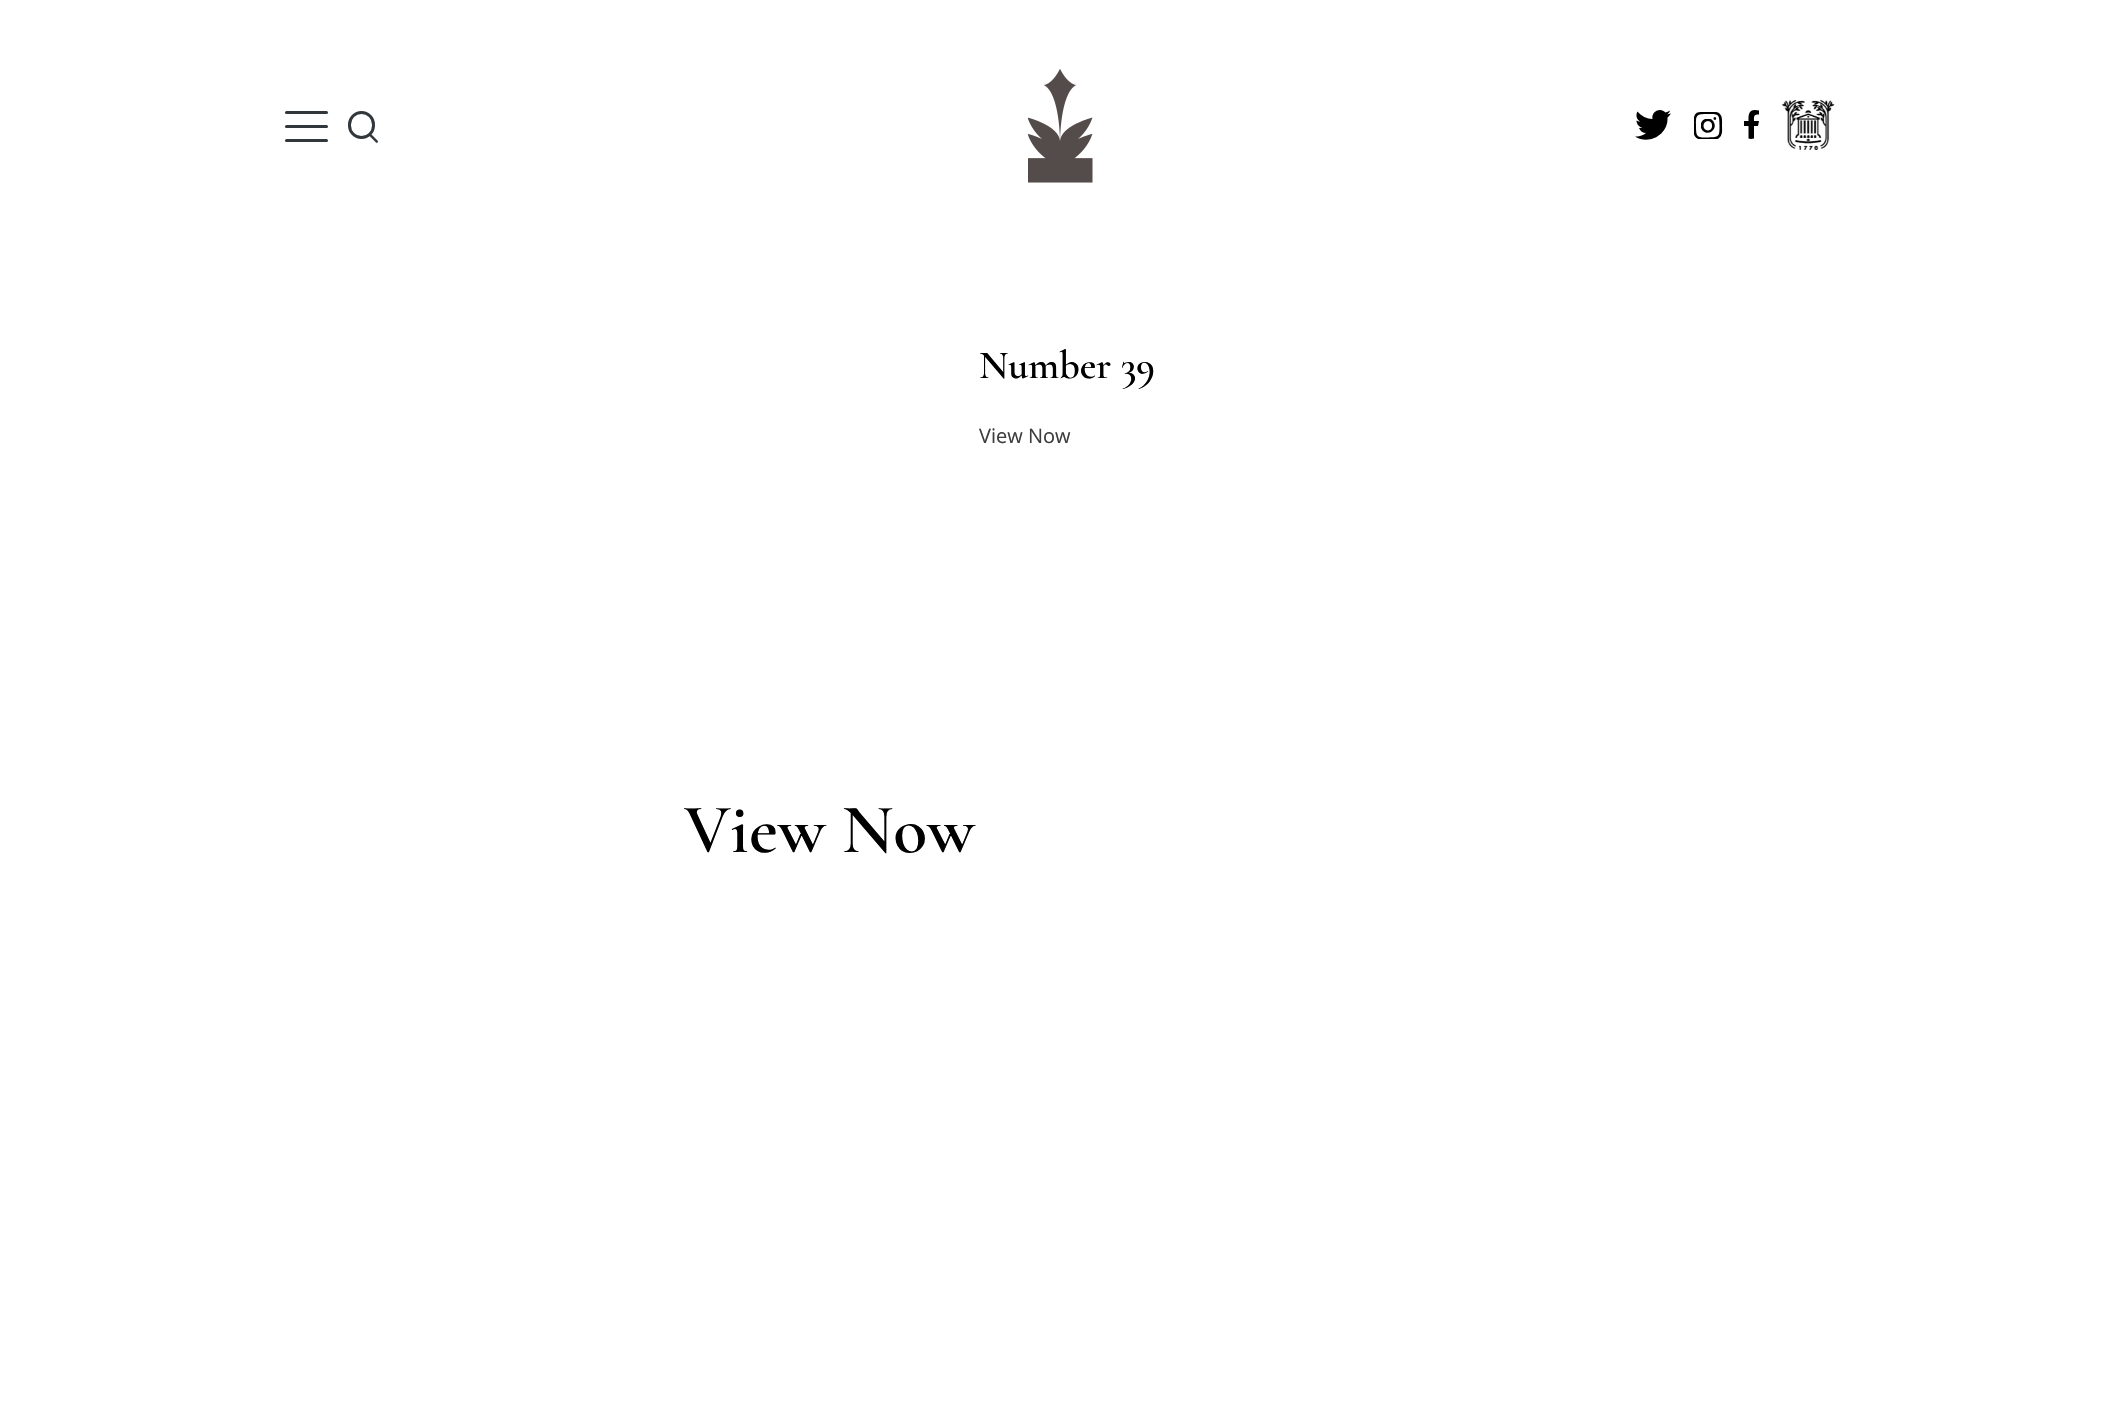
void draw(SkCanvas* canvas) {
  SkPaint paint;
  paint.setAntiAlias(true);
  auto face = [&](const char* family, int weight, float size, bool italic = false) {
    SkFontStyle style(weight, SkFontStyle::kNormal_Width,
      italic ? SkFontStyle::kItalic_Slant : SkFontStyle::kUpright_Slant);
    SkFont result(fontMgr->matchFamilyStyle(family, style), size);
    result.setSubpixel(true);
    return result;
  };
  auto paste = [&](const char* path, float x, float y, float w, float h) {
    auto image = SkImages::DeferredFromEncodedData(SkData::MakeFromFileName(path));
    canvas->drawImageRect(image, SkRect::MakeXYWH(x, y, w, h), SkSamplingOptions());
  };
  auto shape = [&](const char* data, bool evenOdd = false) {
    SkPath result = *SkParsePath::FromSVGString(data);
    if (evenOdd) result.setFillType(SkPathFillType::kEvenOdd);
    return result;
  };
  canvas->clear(0xffffffff);
  paint.setColor(0xff32373b);
  canvas->drawRoundRect(SkRect::MakeXYWH(285, 111, 43, 3), 1.5f, 1.5f, paint);
  canvas->drawRoundRect(SkRect::MakeXYWH(285, 125, 43, 3), 1.5f, 1.5f, paint);
  canvas->drawRoundRect(SkRect::MakeXYWH(285, 139, 43, 3), 1.5f, 1.5f, paint);
  paint.setStroke(true);
  paint.setStrokeWidth(3);
  canvas->drawRoundRect(SkRect::MakeXYWH(349.5f, 112.5f, 24, 25), 12, 12, paint);
  paint.setStroke(false);
  canvas->drawPath(shape("M370.5 133.5L377.5 140.5C378 141 378 142 377.5 142.5C377 143 376.5 143 376 142.5L369 135.5C368.5 135 368.5 134 369 133.5C369.5 133 370 133 370.5 133.5Z"), paint);
  paste("img/1.png", 1028, 69, 65, 114);
  paint.setColor(0xff000000);
  canvas->drawPath(shape("M1660 110C1662 110 1664 111 1665.5 112.5C1667 112 1668.5 111.5 1670 110.5C1669.5 112.5 1668 114 1666.5 114.5L1671 113.5C1670 115 1668.5 116.5 1667.5 117.5C1668.5 134.5 1649 145.5 1635 136.5C1639 137 1643 135.5 1646 133C1643 133 1640 131 1639 128H1642.5C1639 127 1636.5 124 1636.5 120.5C1637.5 121 1638.5 121.5 1640 121.5C1636.5 119 1635.5 115 1637.5 111.5C1641 116 1647 119 1652.5 119C1651.5 114.5 1655 110 1660 110Z"), paint);
  canvas->save();
  canvas->clipRect(SkRect::MakeXYWH(1693, 111, 30, 28));
  canvas->drawPath(shape("M1694 117C1695.5 112.5 1697.5 112 1701.5 112H1714C1716 112 1716.5 111.5 1718 112.5C1723 115 1722 121 1722 125.5C1722 130 1723 135.5 1718.5 138.5C1715 140.5 1710 140 1706.5 140C1702 140 1697.5 140 1695 136.5L1694 134.5ZM1707.5 114C1718 114 1719.5 113.5 1719.5 125C1719.5 135.5 1720 137.5 1708.5 137.5C1698 137.5 1696 138 1696 126.5C1696 115.5 1695.5 114 1707.5 114Z", true), paint);
  canvas->restore();
  canvas->drawPath(shape("M1755 110C1748 110 1748.5 116 1748.5 121H1744V126H1748.5V138.5C1750 139 1752 139 1754 138.5V126H1758L1759 121H1754C1754 116 1753.5 114.5 1759 114.5V110.5Z"), paint);
  paste("img/2.png", 1782, 100, 53, 50);
  paint.setColor(0xff020404);
  canvas->drawPath(shape("M1701 123.5C1701.5 121.5 1703 119.5 1705 119H1710.5C1712 119.5 1713.5 121 1714 122.5C1717.5 129.5 1708.5 136.5 1702.5 130.5L1701 128ZM1708 121C1713.5 121 1713.5 130.5 1708 130.5C1702 130.5 1702 121 1708 121Z", true), paint);
  canvas->drawPath(shape("M1715 117C1716.5 117 1716.5 120 1715 120C1713 120 1713 117 1715 117Z"), paint);
  auto f0 = face("Cormorant Garamond", 600, 40);
  paint.setColor(0xff000000);
  canvas->drawString("Number 39", 979, 378, f0, paint);
  auto f1 = face("Open Sans", 400, 20);
  paint.setColor(0xff3d3d3d);
  canvas->drawString("View Now", 979, 443, f1, paint);
  auto f2 = face("Cormorant Garamond", 600, 70);
  paint.setColor(0xff000000);
  canvas->drawString("View Now", 684, 852, f2, paint);
}
